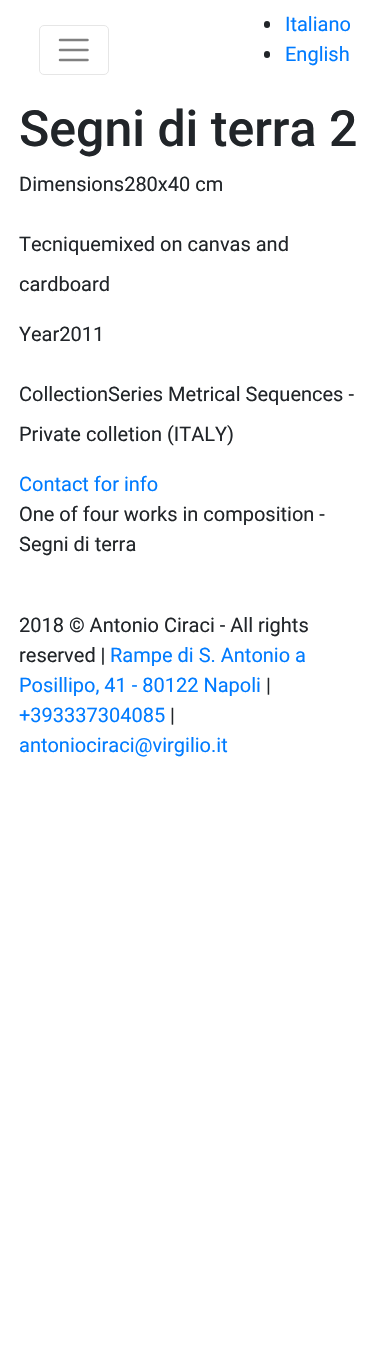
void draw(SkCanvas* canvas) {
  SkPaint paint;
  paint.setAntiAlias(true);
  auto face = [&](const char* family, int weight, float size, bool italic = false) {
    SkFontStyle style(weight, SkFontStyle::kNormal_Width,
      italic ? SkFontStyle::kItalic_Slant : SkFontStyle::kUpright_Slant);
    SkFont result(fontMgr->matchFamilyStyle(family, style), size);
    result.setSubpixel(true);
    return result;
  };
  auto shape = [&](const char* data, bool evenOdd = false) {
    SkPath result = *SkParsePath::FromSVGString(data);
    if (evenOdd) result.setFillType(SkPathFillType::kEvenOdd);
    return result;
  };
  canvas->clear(0xffffffff);
  paint.setStroke(true);
  paint.setStrokeWidth(1);
  paint.setColor(0xffe6e6e6);
  canvas->drawRoundRect(SkRect::MakeXYWH(39.5f, 25.5f, 69, 49), 4.5f, 4.5f, paint);
  paint.setStrokeWidth(2.5f);
  paint.setStrokeCap(SkPaint::kRound_Cap);
  paint.setColor(0xff808080);
  canvas->drawPath(shape("M60 40H87.5M60 50H87.5M60 60H87.5"), paint);
  paint.setStroke(false);
  paint.setColor(0xff212529);
  canvas->drawRoundRect(SkRect::MakeXYWH(264, 21, 6, 7), 3, 3, paint);
  canvas->drawRoundRect(SkRect::MakeXYWH(264, 51, 6, 7), 3, 3, paint);
  auto f0 = face("Roboto", 400, 20);
  paint.setColor(0xff007bff);
  canvas->drawString("Italiano", 285, 31, f0, paint);
  canvas->drawString("English", 285, 61, f0, paint);
  auto f1 = face("Roboto", 500, 50);
  paint.setColor(0xff212529);
  canvas->drawString("Segni di terra 2", 19, 146, f1, paint);
  {
    const struct { const char* s; float x, y; } items[] = {
      {"Dimensions280x40 cm", 19, 191},
      {"Tecniquemixed on canvas and", 19, 251},
      {"cardboard", 19, 291},
      {"Year2011", 19, 341},
      {"CollectionSeries Metrical Sequences -", 19, 401},
      {"Private colletion (ITALY)", 19, 441},
    };
    for (auto [s, x, y] : items) {
      canvas->drawString(s, x, y, f0, paint);
    }
  }
  paint.setColor(0xff007bff);
  canvas->drawString("Contact for info", 19, 491, f0, paint);
  paint.setColor(0xff212529);
  {
    const struct { const char* s; float x, y; } items[] = {
      {"One of four works in composition -", 19, 521},
      {"Segni di terra", 19, 551},
      {"2018 © Antonio Ciraci - All rights", 19, 632},
      {"reserved |", 19, 662},
    };
    for (auto [s, x, y] : items) {
      canvas->drawString(s, x, y, f0, paint);
    }
  }
  paint.setColor(0xff007bff);
  canvas->drawString("Rampe di S. Antonio a", 110, 662, f0, paint);
  canvas->drawString("Posillipo, 41 - 80122 Napoli", 19, 692, f0, paint);
  paint.setColor(0xff212529);
  canvas->drawString("|", 266, 692, f0, paint);
  paint.setColor(0xff007bff);
  canvas->drawString("+393337304085", 19, 722, f0, paint);
  paint.setColor(0xff212529);
  canvas->drawString("|", 170, 722, f0, paint);
  paint.setColor(0xff007bff);
  canvas->drawString("antoniociraci@virgilio.it", 19, 752, f0, paint);
}
